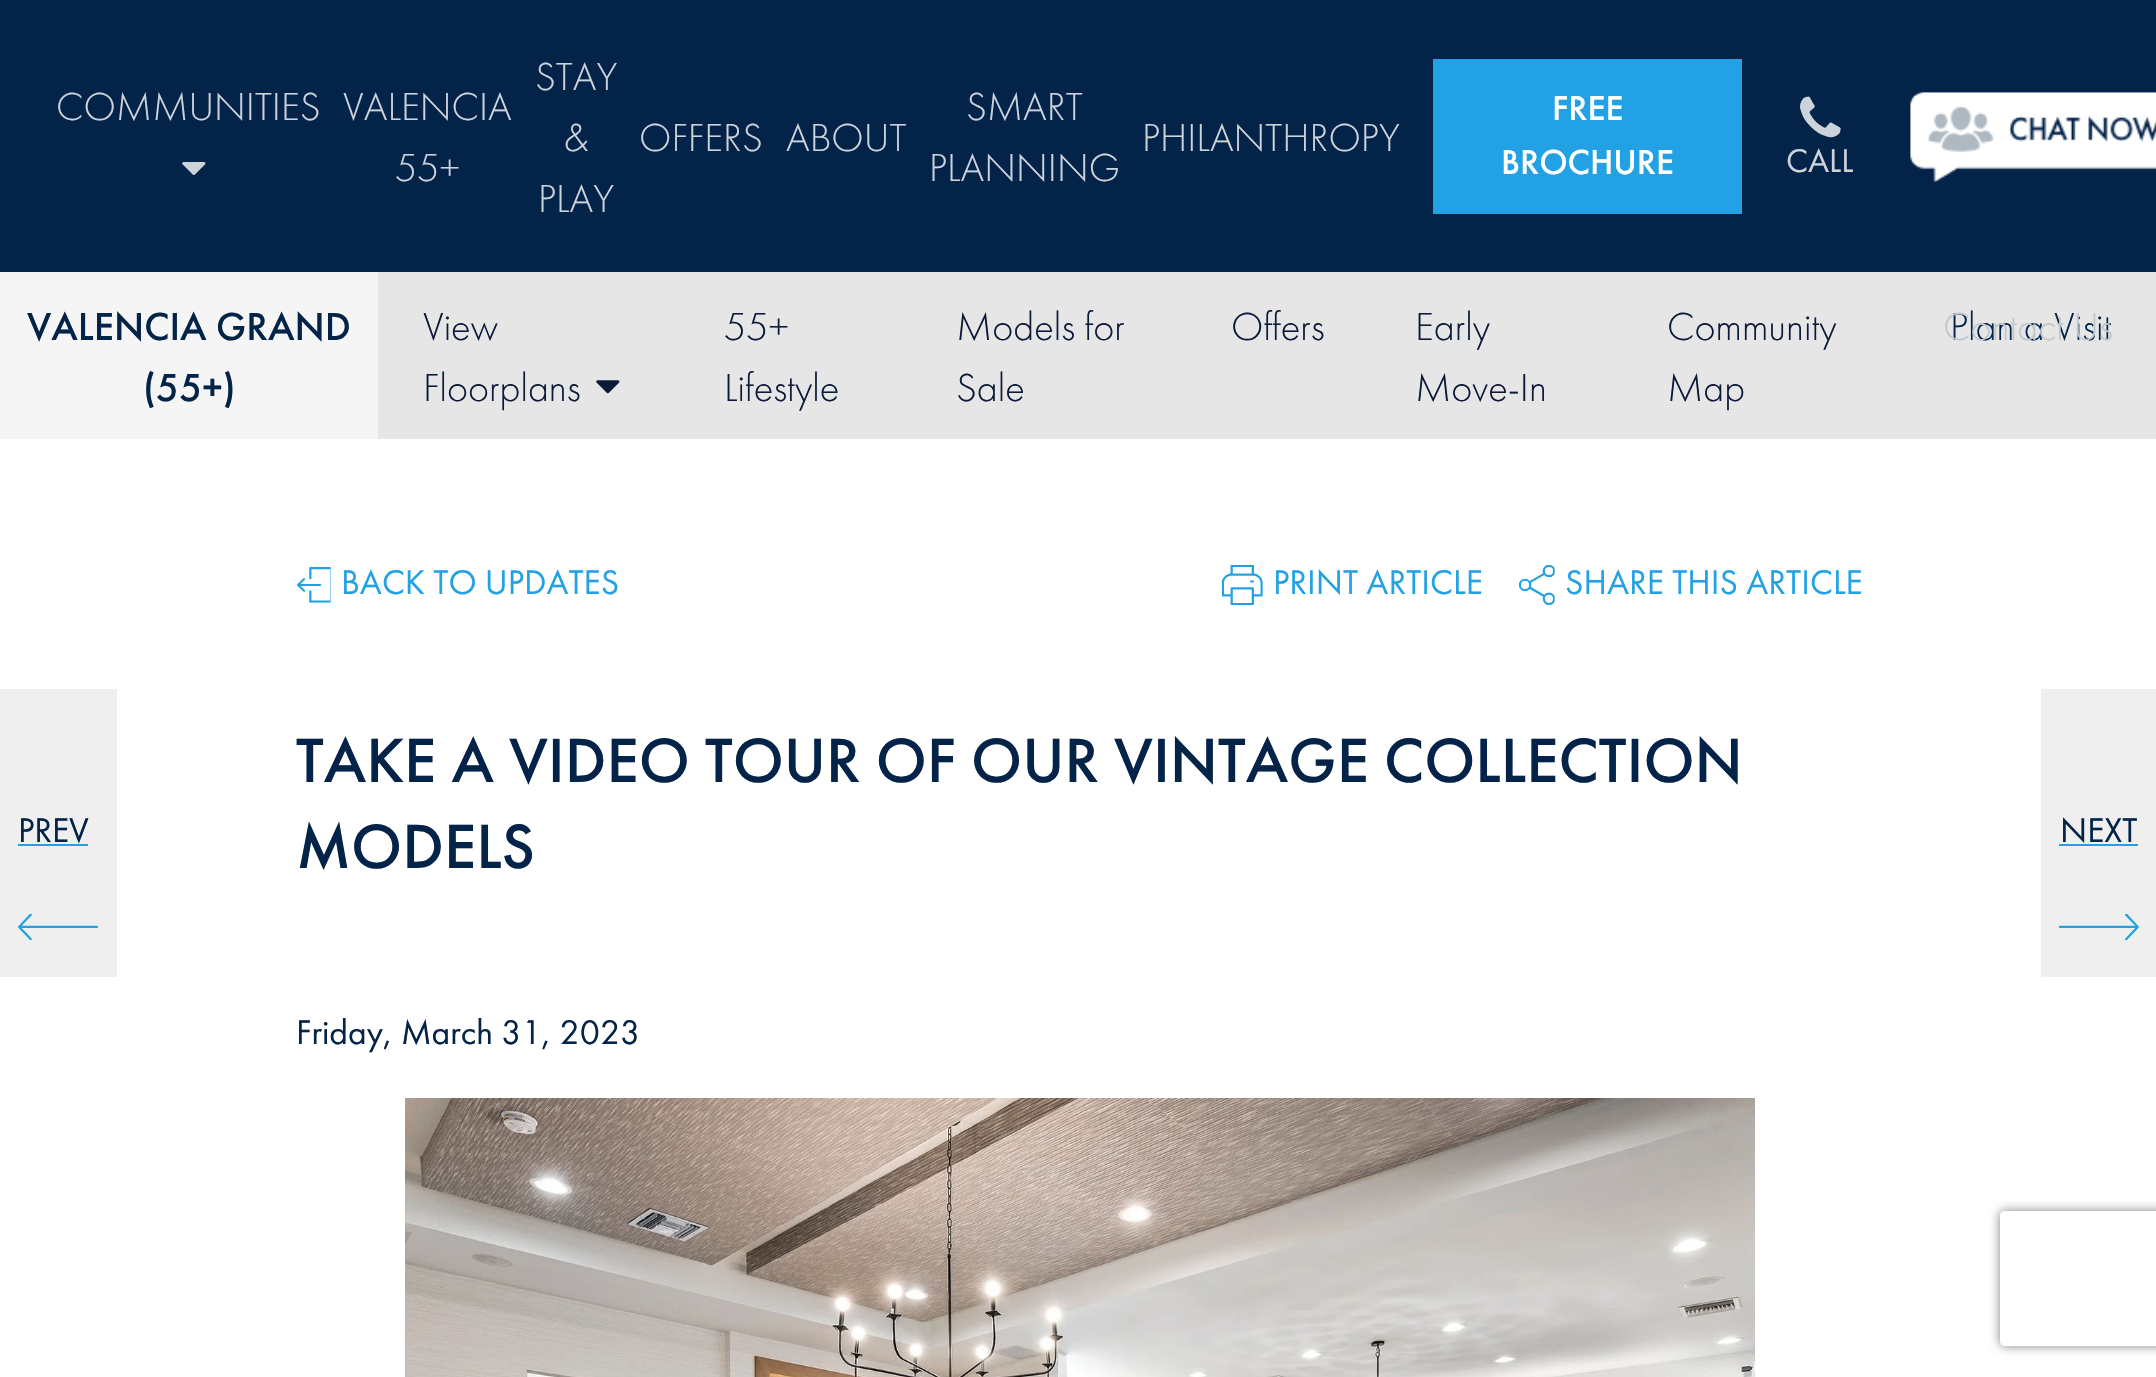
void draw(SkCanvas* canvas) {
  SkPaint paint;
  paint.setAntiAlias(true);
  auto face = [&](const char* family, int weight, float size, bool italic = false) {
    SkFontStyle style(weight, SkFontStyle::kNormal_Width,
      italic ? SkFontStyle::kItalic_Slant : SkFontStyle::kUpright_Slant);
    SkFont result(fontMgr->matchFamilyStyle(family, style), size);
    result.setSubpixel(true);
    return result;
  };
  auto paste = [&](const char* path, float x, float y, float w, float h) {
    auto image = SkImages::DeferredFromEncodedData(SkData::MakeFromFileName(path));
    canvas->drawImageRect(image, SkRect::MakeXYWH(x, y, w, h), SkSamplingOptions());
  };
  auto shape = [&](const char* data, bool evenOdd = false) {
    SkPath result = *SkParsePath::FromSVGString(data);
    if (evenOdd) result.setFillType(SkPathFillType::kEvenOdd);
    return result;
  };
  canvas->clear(0xffffffff);
  paint.setColor(0xff032349);
  canvas->drawRect(SkRect::MakeXYWH(0, 0, 2156, 272), paint);
  paste("img/1.png", 182, 162, 24, 13);
  paint.setColor(0xff22a2e4);
  canvas->drawRect(SkRect::MakeXYWH(1433, 59, 309, 155), paint);
  paste("img/2.png", 1800, 96, 41, 42);
  paste("img/3.png", 1910, 92, 246, 90);
  paint.setColor(0xffe6e6e6);
  canvas->drawRect(SkRect::MakeXYWH(378, 272, 1778, 167), paint);
  paint.setColor(0xfff5f5f5);
  canvas->drawRect(SkRect::MakeXYWH(0, 272, 378, 167), paint);
  paste("img/4.png", 596, 380, 24, 14);
  paste("img/5.png", 297, 567, 34, 36);
  paste("img/6.png", 1222, 565, 41, 40);
  paste("img/7.png", 1519, 565, 36, 40);
  paste("img/8.png", 405, 1098, 1350, 279);
  paint.setColor(0xffefefef);
  canvas->drawRect(SkRect::MakeXYWH(0, 689, 117, 288), paint);
  paint.setColor(0xff22a2e4);
  canvas->drawRect(SkRect::MakeXYWH(18, 844, 70, 2), paint);
  paste("img/9.png", 18, 913, 80, 28);
  paint.setColor(0xffefefef);
  canvas->drawRect(SkRect::MakeXYWH(2041, 689, 115, 288), paint);
  paint.setColor(0xff22a2e4);
  canvas->drawRect(SkRect::MakeXYWH(2059, 844, 79, 2), paint);
  paste("img/10.png", 2059, 913, 80, 28);
  canvas->save();
  canvas->clipPath(shape("M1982 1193H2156V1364H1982ZM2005 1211H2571C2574 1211 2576 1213 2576 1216V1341C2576 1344 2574 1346 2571 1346H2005C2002 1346 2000 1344 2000 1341V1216C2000 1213 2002 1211 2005 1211Z", true), true);
  paint.setColor(0xff808080);
  paint.setMaskFilter(SkMaskFilter::MakeBlur(kNormal_SkBlurStyle, 5.5f));
  canvas->drawRoundRect(SkRect::MakeXYWH(2000, 1211, 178, 135), 5, 5, paint);
  paint.setMaskFilter(nullptr);
  canvas->restore();
  auto f0 = face("Futura PT", 300, 40.5f);
  paint.setColor(0xffcdd3db);
  {
    const struct { const char* s; float x, y; } items[] = {
      {"COMMUNITIES", 56, 120},
      {"VALENCIA", 343, 120},
      {"55+", 395, 181},
      {"STAY", 535, 90},
      {"&", 563, 151},
      {"PLAY", 538, 212},
      {"OFFERS", 639, 151},
      {"ABOUT", 786, 151},
      {"SMART", 966, 120},
      {"PLANNING", 929, 181},
      {"PHILANTHROPY", 1142, 151},
    };
    for (auto [s, x, y] : items) {
      canvas->drawString(s, x, y, f0, paint);
    }
  }
  auto f1 = face("Futura PT", 500, 36);
  paint.setColor(0xffffffff);
  canvas->drawString("FREE", 1552, 120, f1, paint);
  canvas->drawString("BROCHURE", 1501, 174, f1, paint);
  auto f2 = face("Futura PT", 400, 34);
  paint.setColor(0xffcdd3db);
  canvas->drawString("CALL", 1786, 172, f2, paint);
  auto f3 = face("Futura PT", 500, 40.5f);
  paint.setColor(0xff032349);
  canvas->drawString("VALENCIA GRAND", 27, 340, f3, paint);
  canvas->drawString("(55+)", 143, 401, f3, paint);
  paint.setColor(0xff0c1a39);
  {
    const struct { const char* s; float x, y; } items[] = {
      {"View", 423, 340},
      {"Floorplans", 423, 401},
      {"55+", 724, 340},
      {"Lifestyle", 724, 401},
      {"Models for", 956, 340},
      {"Sale", 956, 401},
      {"Offers", 1231, 340},
      {"Early", 1415, 340},
      {"Move-In", 1415, 401},
      {"Community", 1667, 340},
      {"Map", 1667, 401},
    };
    for (auto [s, x, y] : items) {
      canvas->drawString(s, x, y, f0, paint);
    }
  }
  paint.setColor(0xff032349);
  canvas->drawString("Plan a Visit", 1950, 340, f0, paint);
  paint.setColor(0xffc2c7cd);
  canvas->drawString("Contact Us", 1943, 340, f0, paint);
  auto f4 = face("Futura PT", 400, 35.5f);
  paint.setColor(0xff22a2e4);
  {
    const struct { const char* s; float x, y; } items[] = {
      {"BACK TO UPDATES", 341, 594},
      {"PRINT ARTICLE", 1273, 594},
      {"SHARE THIS ARTICLE", 1565, 594},
    };
    for (auto [s, x, y] : items) {
      canvas->drawString(s, x, y, f4, paint);
    }
  }
  auto f5 = face("Futura PT", 500, 64.7f);
  paint.setColor(0xff032349);
  canvas->drawString("TAKE A VIDEO TOUR OF OUR VINTAGE COLLECTION", 296, 782, f5, paint);
  canvas->drawString("MODELS", 296, 868, f5, paint);
  {
    const struct { const char* s; float x, y; } items[] = {
      {"Friday, March 31, 2023", 296, 1044},
      {"PREV", 18, 842},
      {"NEXT", 2060, 842},
    };
    for (auto [s, x, y] : items) {
      canvas->drawString(s, x, y, f4, paint);
    }
  }
}
